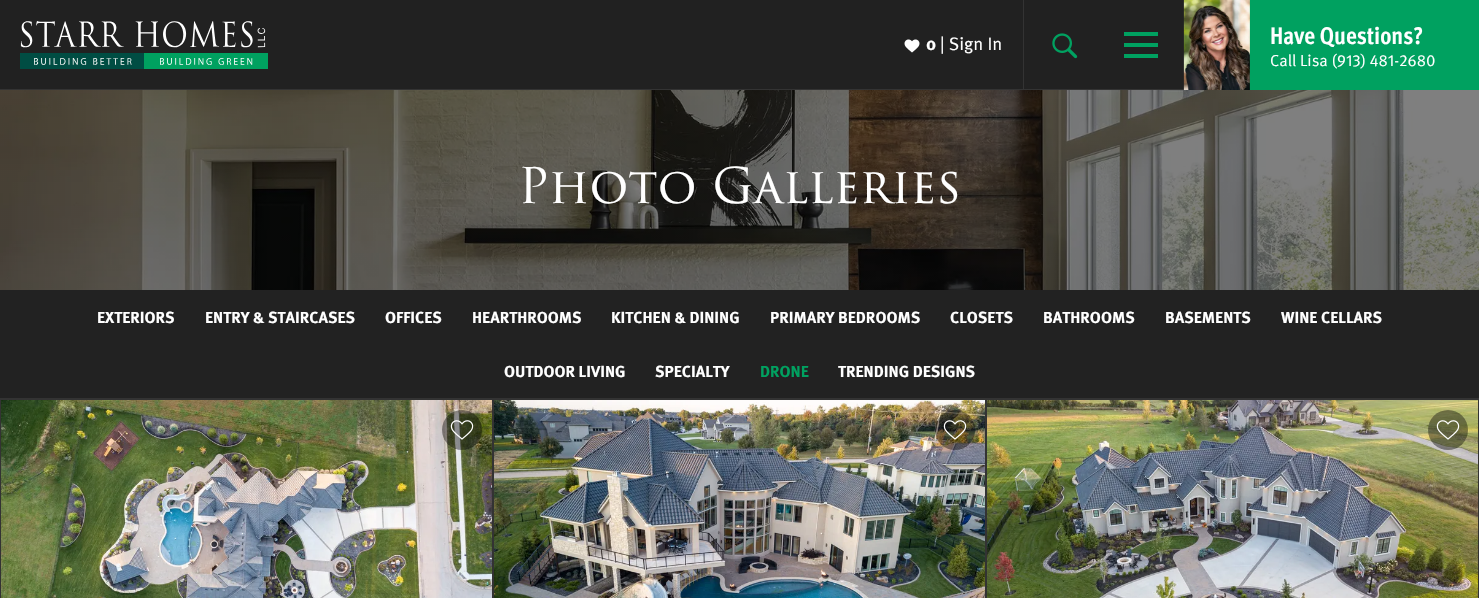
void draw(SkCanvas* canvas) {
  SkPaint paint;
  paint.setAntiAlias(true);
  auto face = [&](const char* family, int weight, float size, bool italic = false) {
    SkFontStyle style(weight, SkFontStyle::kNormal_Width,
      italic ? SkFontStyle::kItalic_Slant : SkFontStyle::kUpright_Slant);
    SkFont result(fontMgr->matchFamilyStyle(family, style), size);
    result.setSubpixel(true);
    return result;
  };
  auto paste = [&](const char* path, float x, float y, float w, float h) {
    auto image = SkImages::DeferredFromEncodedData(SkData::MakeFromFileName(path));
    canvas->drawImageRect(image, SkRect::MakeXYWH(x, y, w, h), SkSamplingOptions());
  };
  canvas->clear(0xffffffff);
  paint.setColor(0xff212121);
  canvas->drawRect(SkRect::MakeXYWH(0, 0, 1184, 89), paint);
  paint.setColor(0xff333333);
  canvas->drawRect(SkRect::MakeXYWH(0, 89, 1184, 1), paint);
  paste("img/1.png", 20, 21, 248, 48);
  canvas->drawRect(SkRect::MakeXYWH(1023, 0, 1, 90), paint);
  paste("img/2.png", 904, 39, 16, 14);
  paste("img/3.png", 1052, 33, 26, 26);
  {
    const struct { float x, y, w, h; SkColor color; } items[] = {
      {1124, 32, 34, 4, 0xff00a160},
      {1124, 43, 34, 4, 0xff00a160},
      {1124, 54, 34, 4, 0xff00a160},
      {1249, 0, 230, 90, 0xff00a160},
    };
    for (auto [x, y, w, h, color] : items) {
      paint.setColor(color);
      canvas->drawRect(SkRect::MakeXYWH(x, y, w, h), paint);
    }
  }
  paste("img/4.png", 1183, 0, 67, 90);
  paste("img/5.png", 0, 90, 1479, 200);
  paint.setColor(0xff222222);
  canvas->drawRect(SkRect::MakeXYWH(0, 290, 1479, 108), paint);
  paint.setColor(0xff333333);
  canvas->drawRect(SkRect::MakeXYWH(0, 398, 1479, 1), paint);
  paint.setStroke(true);
  paint.setStrokeWidth(1);
  canvas->drawRect(SkRect::MakeXYWH(0.5f, 399.5f, 492, 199), paint);
  paste("img/6.png", 1, 400, 491, 198);
  paint.setStroke(false);
  paint.setColor(0x66000000);
  canvas->drawCircle(462, 430, 20, paint);
  paste("img/7.png", 450, 420, 24, 20);
  paint.setStroke(true);
  paint.setColor(0xff333333);
  canvas->drawRect(SkRect::MakeXYWH(493.5f, 399.5f, 492, 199), paint);
  paste("img/8.png", 494, 400, 491, 198);
  paint.setStroke(false);
  paint.setColor(0x66000000);
  canvas->drawCircle(955, 430, 20, paint);
  paste("img/9.png", 943, 420, 24, 20);
  paint.setStroke(true);
  paint.setColor(0xff333333);
  canvas->drawRect(SkRect::MakeXYWH(986.5f, 399.5f, 492, 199), paint);
  paste("img/10.png", 987, 400, 491, 198);
  paint.setStroke(false);
  paint.setColor(0x66000000);
  canvas->drawCircle(1448, 430, 20, paint);
  paste("img/11.png", 1436, 420, 24, 20);
  auto f0 = face("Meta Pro", 700, 18);
  paint.setColor(0xffffffff);
  canvas->drawString("0", 926, 50, f0, paint);
  auto f1 = face("Meta Pro", 400, 18);
  canvas->drawString("| Sign In", 940, 50, f1, paint);
  auto f2 = face("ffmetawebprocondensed", 700, 24);
  canvas->drawString("Have Questions?", 1270, 44, f2, paint);
  auto f3 = face("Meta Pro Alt", 400, 16);
  canvas->drawString("Call Lisa (913) 481-2680", 1270, 66, f3, paint);
  auto f4 = face("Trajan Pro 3", 400, 48);
  canvas->drawString("Photo Galleries", 518, 203, f4, paint);
  auto f5 = face("Meta Pro", 700, 16);
  {
    const struct { const char* s; float x, y; } items[] = {
      {"EXTERIORS", 97, 323},
      {"ENTRY & STAIRCASES", 205, 323},
      {"OFFICES", 385, 323},
      {"HEARTHROOMS", 472, 323},
      {"KITCHEN & DINING", 611, 323},
      {"PRIMARY BEDROOMS", 770, 323},
      {"CLOSETS", 950, 323},
      {"BATHROOMS", 1043, 323},
      {"BASEMENTS", 1165, 323},
      {"WINE CELLARS", 1281, 323},
      {"OUTDOOR LIVING", 504, 377},
      {"SPECIALTY", 655, 377},
    };
    for (auto [s, x, y] : items) {
      canvas->drawString(s, x, y, f5, paint);
    }
  }
  paint.setColor(0xff00a160);
  canvas->drawString("DRONE", 760, 377, f5, paint);
  paint.setColor(0xffffffff);
  canvas->drawString("TRENDING DESIGNS", 838, 377, f5, paint);
}
